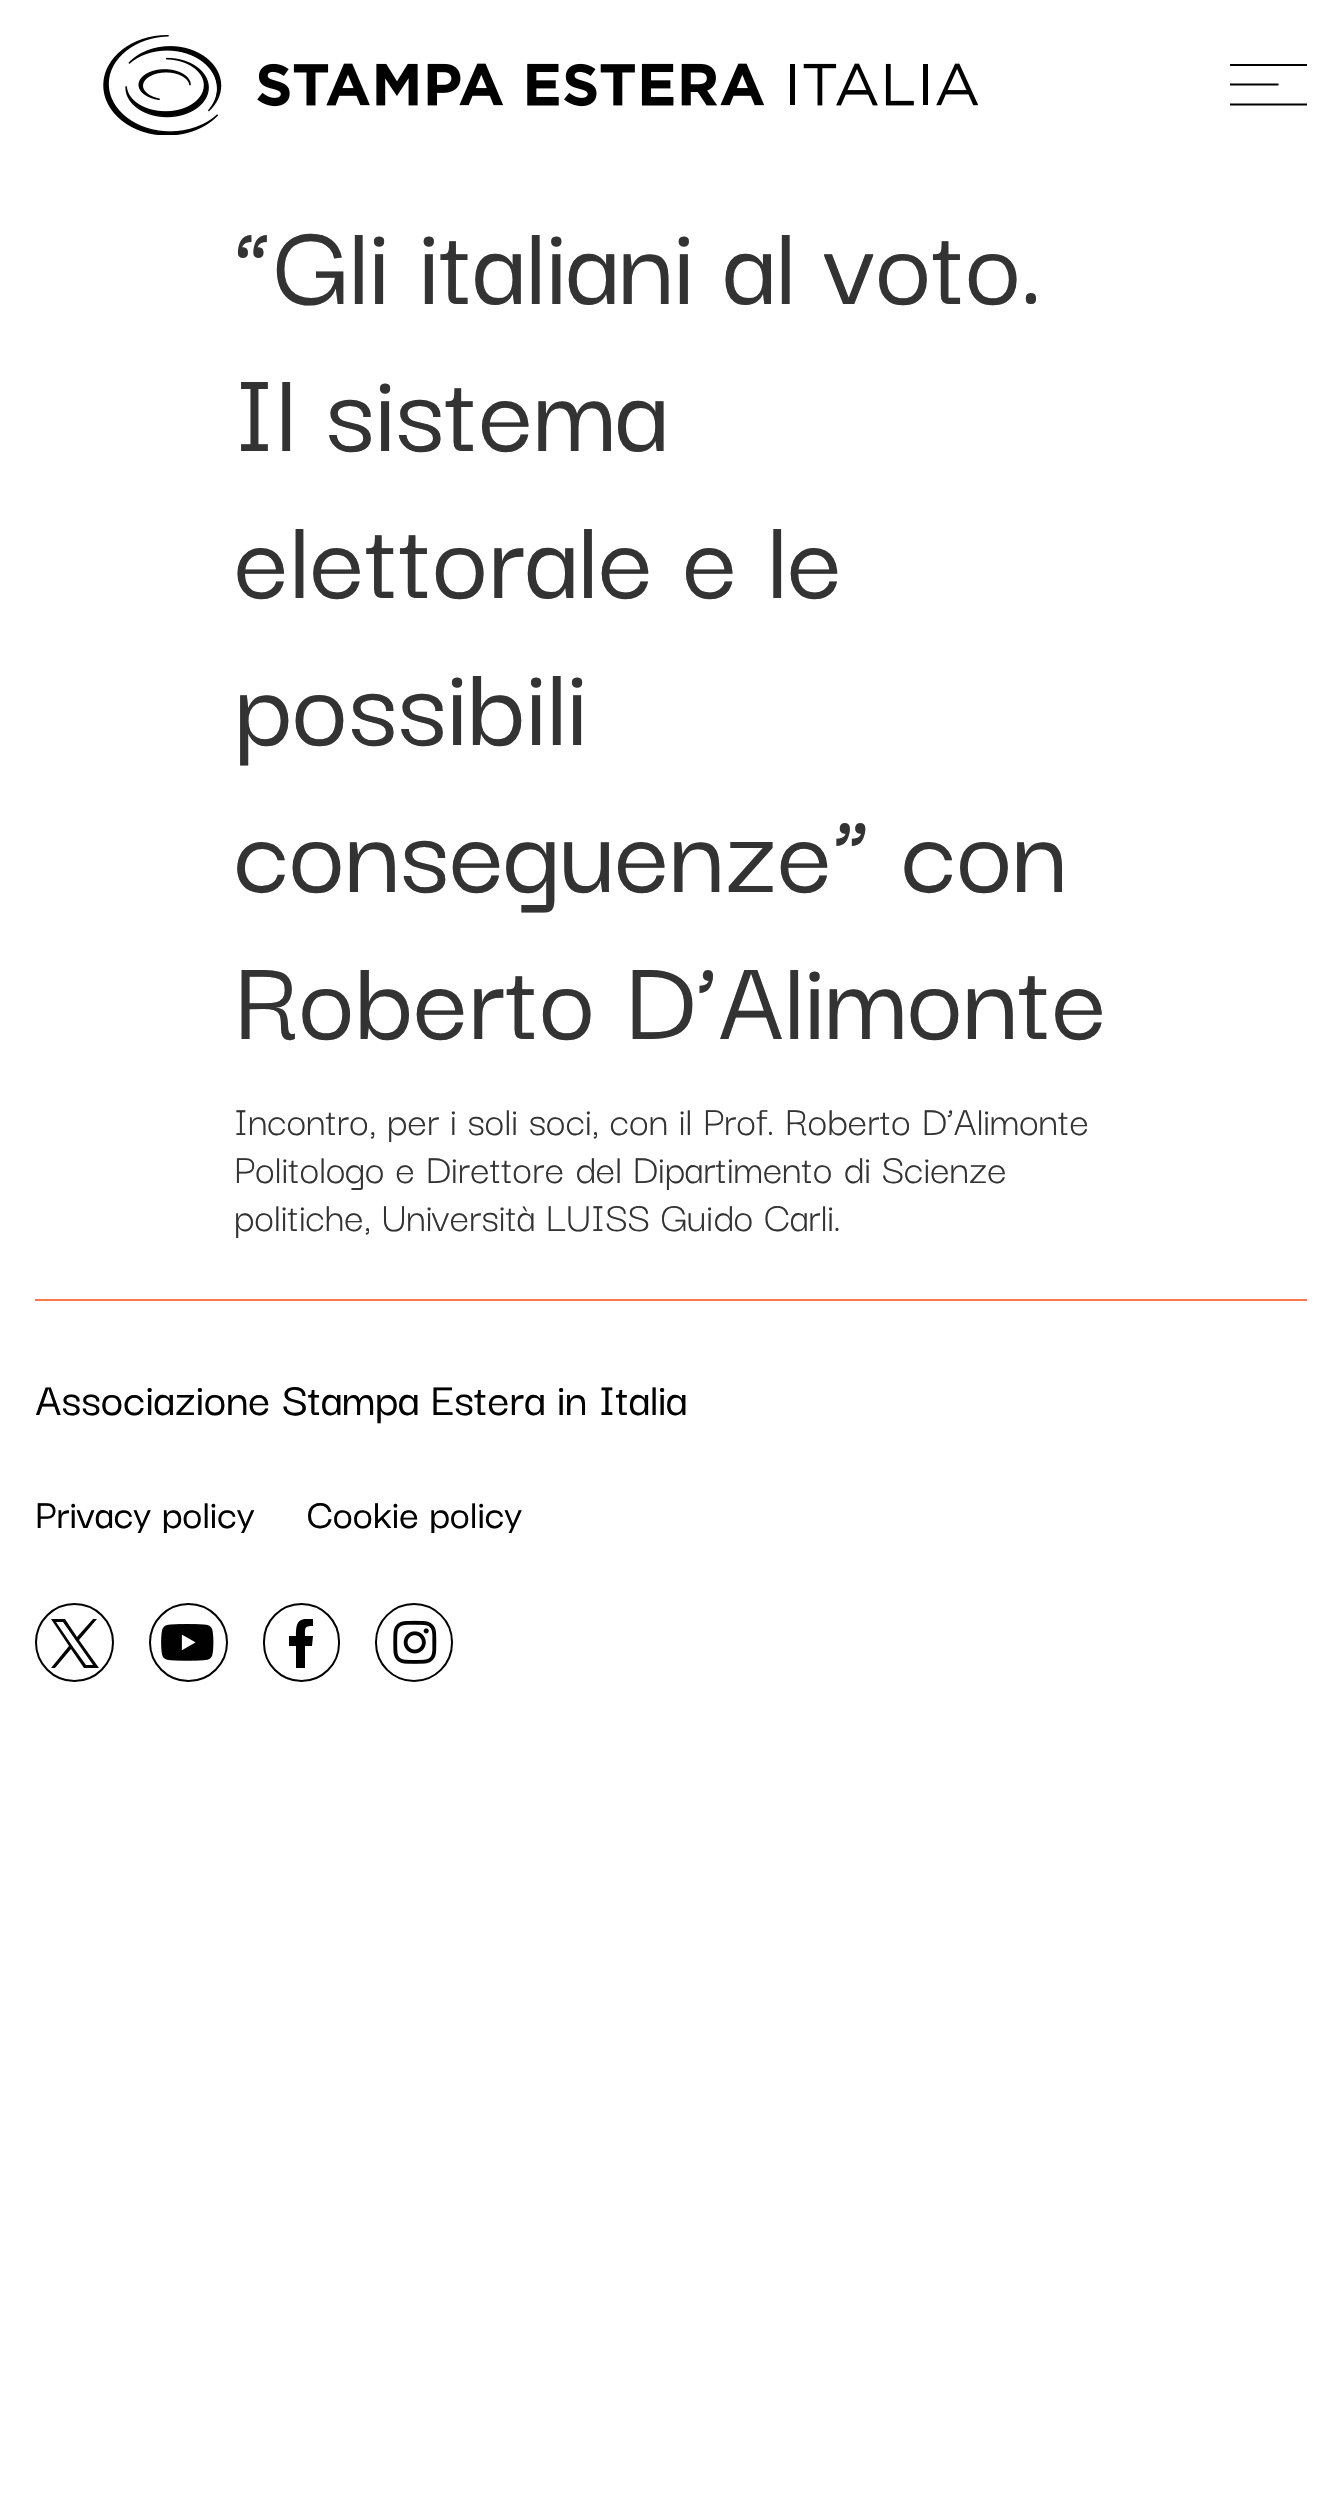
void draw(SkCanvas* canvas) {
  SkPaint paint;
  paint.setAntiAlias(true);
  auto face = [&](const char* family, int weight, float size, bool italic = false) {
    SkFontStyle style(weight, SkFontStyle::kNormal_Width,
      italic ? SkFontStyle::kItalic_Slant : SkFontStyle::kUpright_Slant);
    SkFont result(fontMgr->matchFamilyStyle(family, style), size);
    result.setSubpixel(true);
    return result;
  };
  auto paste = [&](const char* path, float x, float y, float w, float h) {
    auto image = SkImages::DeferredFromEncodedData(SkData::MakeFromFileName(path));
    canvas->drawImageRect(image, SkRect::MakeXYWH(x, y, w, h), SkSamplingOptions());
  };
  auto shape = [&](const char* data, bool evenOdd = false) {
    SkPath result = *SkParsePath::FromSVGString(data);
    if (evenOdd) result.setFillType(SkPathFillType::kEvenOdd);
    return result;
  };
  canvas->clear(0xffffffff);
  paste("img/1.png", 103, 35, 875, 100);
  paint.setColor(0xff000000);
  canvas->drawRect(SkRect::MakeXYWH(1230, 64, 77, 2), paint);
  canvas->save();
  canvas->clipRect(SkRect::MakeXYWH(1230, 63, 77, 44));
  paint.setStroke(true);
  paint.setStrokeWidth(2.2f);
  canvas->drawPath(shape("M1230 104.5H1308"), paint);
  canvas->restore();
  canvas->drawPath(shape("M1230 84.5H1278.5"), paint);
  paint.setStroke(false);
  paint.setColor(0xffff774d);
  canvas->drawRect(SkRect::MakeXYWH(35, 1299, 1272, 2), paint);
  paint.setStroke(true);
  paint.setStrokeWidth(2);
  paint.setColor(0xff010101);
  canvas->drawCircle(74.5f, 1642.5f, 38.5f, paint);
  paint.setStroke(false);
  canvas->drawPath(shape("M79 1640L97 1619H93L77 1637L65 1619H51L69 1646L51 1668H55L71 1649L84 1668H99ZM73 1647L56 1622H63L93 1665H86Z"), paint);
  paint.setStroke(true);
  canvas->drawCircle(188.5f, 1642.5f, 38.5f, paint);
  paste("img/2.png", 161, 1624, 53, 37);
  canvas->drawRoundRect(SkRect::MakeXYWH(264, 1604, 75, 77), 37.5f, 37.5f, paint);
  paint.setStroke(false);
  paint.setColor(0xff000000);
  canvas->drawPath(shape("M305 1668V1646H312L313 1636H305C305 1628 304 1626 313 1626V1619H306C296 1619 296 1628 296 1636H289V1646H296V1668Z", true), paint);
  paint.setStroke(true);
  paint.setColor(0xff010101);
  canvas->drawRoundRect(SkRect::MakeXYWH(376, 1604, 76, 77), 38, 38, paint);
  paste("img/3.png", 393, 1620, 44, 44);
  auto f0 = face("Darker Grotesque", 500, 122.5f);
  paint.setStroke(false);
  paint.setColor(0xff333333);
  {
    const struct { const char* s; float x, y; } items[] = {
      {"“Gli italiani al voto.", 234, 304},
      {"Il sistema", 234, 451},
      {"elettorale e le", 234, 598},
      {"possibili", 234, 745},
      {"conseguenze” con", 234, 892},
      {"Roberto D’Alimonte", 234, 1039},
    };
    for (auto [s, x, y] : items) {
      canvas->drawString(s, x, y, f0, paint);
    }
  }
  auto f1 = face("Darker Grotesque", 400, 43.75f);
  {
    const struct { const char* s; float x, y; } items[] = {
      {"Incontro, per i soli soci, con il Prof. Roberto D’Alimonte", 234, 1135},
      {"Politologo e Direttore del Dipartimento di Scienze", 234, 1183},
      {"politiche, Università LUISS Guido Carli.", 234, 1231},
    };
    for (auto [s, x, y] : items) {
      canvas->drawString(s, x, y, f1, paint);
    }
  }
  auto f2 = face("Darker Grotesque", 500, 49);
  paint.setColor(0xff010101);
  canvas->drawString("Associazione Stampa Estera in Italia", 35, 1415, f2, paint);
  canvas->save();
  canvas->clipRect(SkRect::MakeXYWH(35, 1489, 1237, 44));
  auto f3 = face("Darker Grotesque", 500, 43.75f);
  canvas->drawString("Privacy policy", 35, 1528, f3, paint);
  canvas->drawString("Cookie policy", 307, 1528, f3, paint);
  canvas->restore();
}
